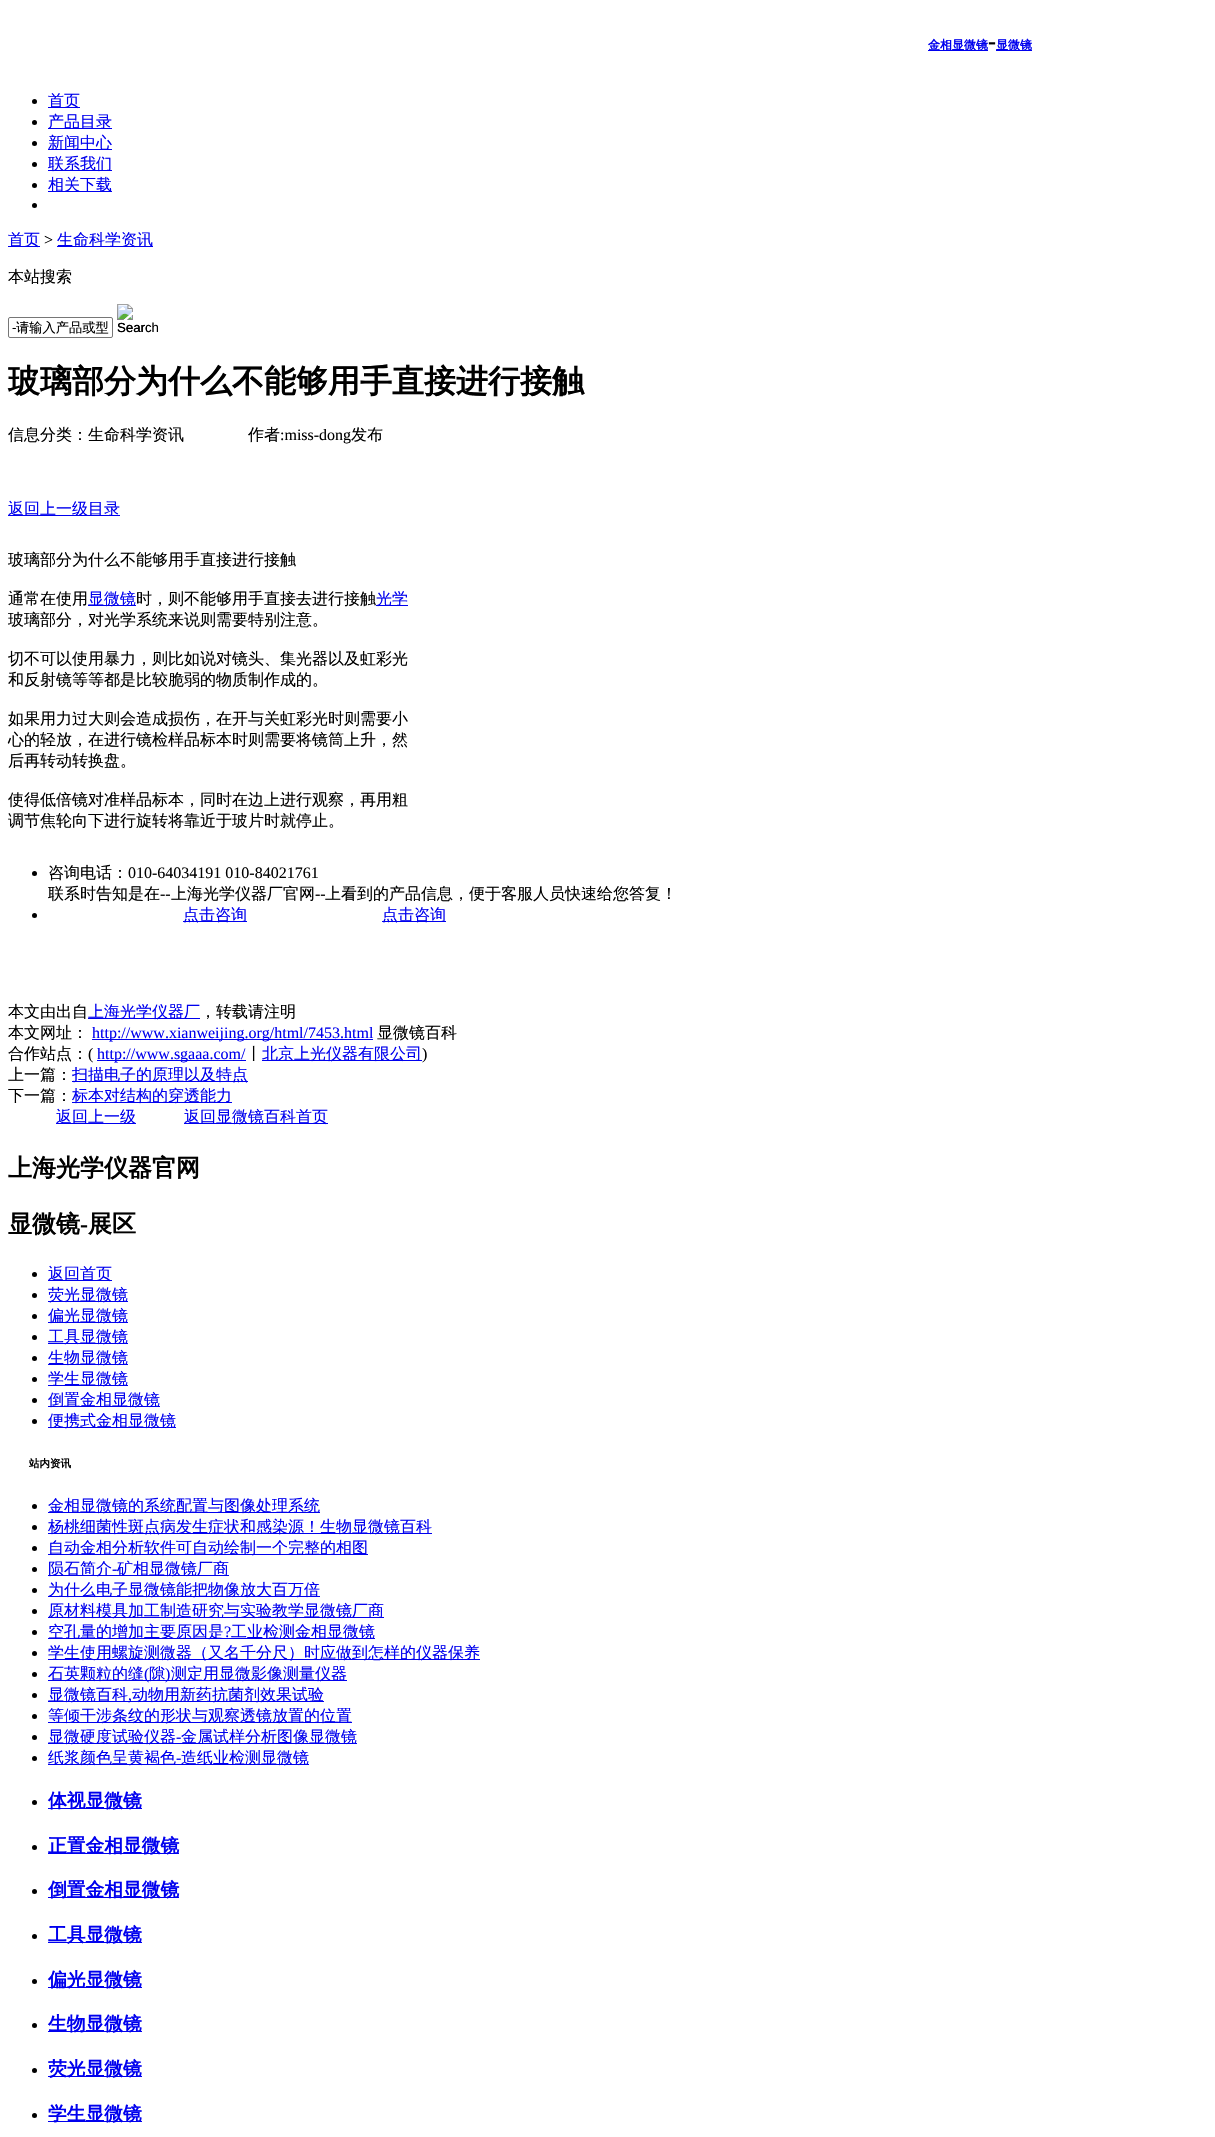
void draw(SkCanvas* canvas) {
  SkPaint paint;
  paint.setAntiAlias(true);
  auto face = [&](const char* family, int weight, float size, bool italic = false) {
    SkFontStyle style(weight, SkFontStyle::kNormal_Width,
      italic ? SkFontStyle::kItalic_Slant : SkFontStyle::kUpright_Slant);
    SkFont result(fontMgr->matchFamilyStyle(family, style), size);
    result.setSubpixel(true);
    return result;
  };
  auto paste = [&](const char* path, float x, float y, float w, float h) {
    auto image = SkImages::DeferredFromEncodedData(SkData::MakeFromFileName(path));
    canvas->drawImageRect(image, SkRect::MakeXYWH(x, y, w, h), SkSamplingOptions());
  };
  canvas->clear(0xffffffff);
  paint.setColor(0xff0000ee);
  canvas->drawRect(SkRect::MakeXYWH(928, 50, 60, 1), paint);
  canvas->drawRect(SkRect::MakeXYWH(996, 50, 36, 1), paint);
  paint.setColor(0xff000000);
  canvas->drawCircle(34.5f, 101.5f, 2.5f, paint);
  paint.setColor(0xff0000ee);
  canvas->drawRect(SkRect::MakeXYWH(48, 107, 32, 1), paint);
  paint.setColor(0xff000000);
  canvas->drawCircle(34.5f, 122.5f, 2.5f, paint);
  paint.setColor(0xff0000ee);
  canvas->drawRect(SkRect::MakeXYWH(48, 128, 64, 1), paint);
  paint.setColor(0xff000000);
  canvas->drawCircle(34.5f, 143.5f, 2.5f, paint);
  paint.setColor(0xff0000ee);
  canvas->drawRect(SkRect::MakeXYWH(48, 149, 64, 1), paint);
  paint.setColor(0xff000000);
  canvas->drawCircle(34.5f, 164.5f, 2.5f, paint);
  paint.setColor(0xff0000ee);
  canvas->drawRect(SkRect::MakeXYWH(48, 170, 64, 1), paint);
  paint.setColor(0xff000000);
  canvas->drawCircle(34.5f, 185.5f, 2.5f, paint);
  paint.setColor(0xff0000ee);
  canvas->drawRect(SkRect::MakeXYWH(48, 191, 64, 1), paint);
  paint.setColor(0xff000000);
  canvas->drawCircle(34.5f, 205.5f, 2.5f, paint);
  paint.setColor(0xff0000ee);
  canvas->drawRect(SkRect::MakeXYWH(8, 246, 32, 1), paint);
  canvas->drawRect(SkRect::MakeXYWH(57, 246, 96, 1), paint);
  paint.setStroke(true);
  paint.setStrokeWidth(1);
  paint.setColor(0xff767676);
  canvas->drawRoundRect(SkRect::MakeXYWH(8.5f, 317.5f, 104, 20), 1.5f, 1.5f, paint);
  paste("img/1.png", 117, 304, 30, 28);
  paint.setStroke(false);
  {
    const struct { float x, y, w, h; SkColor color; } items[] = {
      {8, 515, 112, 1, 0xff0000ee},
      {88, 605, 48, 1, 0xff0000ee},
      {376, 605, 32, 1, 0xff0000ee},
    };
    for (auto [x, y, w, h, color] : items) {
      paint.setColor(color);
      canvas->drawRect(SkRect::MakeXYWH(x, y, w, h), paint);
    }
  }
  paint.setColor(0xff000000);
  canvas->drawCircle(34.5f, 873.5f, 2.5f, paint);
  canvas->drawCircle(34.5f, 915.5f, 2.5f, paint);
  {
    const struct { float x, y, w, h; SkColor color; } items[] = {
      {183, 921, 64, 1, 0xff0000ee},
      {382, 921, 64, 1, 0xff0000ee},
      {88, 1018, 112, 1, 0xff0000ee},
      {92, 1039, 281, 1, 0xff0000ee},
      {97, 1060, 149, 1, 0xff0000ee},
      {262, 1060, 160, 1, 0xff0000ee},
      {72, 1081, 176, 1, 0xff0000ee},
      {72, 1102, 160, 1, 0xff0000ee},
      {56, 1123, 80, 1, 0xff0000ee},
      {184, 1123, 144, 1, 0xff0000ee},
    };
    for (auto [x, y, w, h, color] : items) {
      paint.setColor(color);
      canvas->drawRect(SkRect::MakeXYWH(x, y, w, h), paint);
    }
  }
  paint.setColor(0xff000000);
  canvas->drawCircle(34.5f, 1274.5f, 2.5f, paint);
  paint.setColor(0xff0000ee);
  canvas->drawRect(SkRect::MakeXYWH(48, 1280, 64, 1), paint);
  paint.setColor(0xff000000);
  canvas->drawCircle(34.5f, 1295.5f, 2.5f, paint);
  paint.setColor(0xff0000ee);
  canvas->drawRect(SkRect::MakeXYWH(48, 1301, 80, 1), paint);
  paint.setColor(0xff000000);
  canvas->drawCircle(34.5f, 1316.5f, 2.5f, paint);
  paint.setColor(0xff0000ee);
  canvas->drawRect(SkRect::MakeXYWH(48, 1322, 80, 1), paint);
  paint.setColor(0xff000000);
  canvas->drawCircle(34.5f, 1337.5f, 2.5f, paint);
  paint.setColor(0xff0000ee);
  canvas->drawRect(SkRect::MakeXYWH(48, 1343, 80, 1), paint);
  paint.setColor(0xff000000);
  canvas->drawCircle(34.5f, 1358.5f, 2.5f, paint);
  paint.setColor(0xff0000ee);
  canvas->drawRect(SkRect::MakeXYWH(48, 1364, 80, 1), paint);
  paint.setColor(0xff000000);
  canvas->drawCircle(34.5f, 1379.5f, 2.5f, paint);
  paint.setColor(0xff0000ee);
  canvas->drawRect(SkRect::MakeXYWH(48, 1385, 80, 1), paint);
  paint.setColor(0xff000000);
  canvas->drawCircle(34.5f, 1400.5f, 2.5f, paint);
  paint.setColor(0xff0000ee);
  canvas->drawRect(SkRect::MakeXYWH(48, 1406, 112, 1), paint);
  paint.setColor(0xff000000);
  canvas->drawCircle(34.5f, 1421.5f, 2.5f, paint);
  paint.setColor(0xff0000ee);
  canvas->drawRect(SkRect::MakeXYWH(48, 1427, 128, 1), paint);
  paint.setColor(0xff000000);
  canvas->drawCircle(34.5f, 1506.5f, 2.5f, paint);
  paint.setColor(0xff0000ee);
  canvas->drawRect(SkRect::MakeXYWH(48, 1512, 272, 1), paint);
  paint.setColor(0xff000000);
  canvas->drawCircle(34.5f, 1527.5f, 2.5f, paint);
  paint.setColor(0xff0000ee);
  canvas->drawRect(SkRect::MakeXYWH(48, 1533, 384, 1), paint);
  paint.setColor(0xff000000);
  canvas->drawCircle(34.5f, 1548.5f, 2.5f, paint);
  paint.setColor(0xff0000ee);
  canvas->drawRect(SkRect::MakeXYWH(48, 1554, 320, 1), paint);
  paint.setColor(0xff000000);
  canvas->drawCircle(34.5f, 1569.5f, 2.5f, paint);
  paint.setColor(0xff0000ee);
  canvas->drawRect(SkRect::MakeXYWH(48, 1575, 181, 1), paint);
  paint.setColor(0xff000000);
  canvas->drawCircle(34.5f, 1590.5f, 2.5f, paint);
  paint.setColor(0xff0000ee);
  canvas->drawRect(SkRect::MakeXYWH(48, 1596, 272, 1), paint);
  paint.setColor(0xff000000);
  canvas->drawCircle(34.5f, 1611.5f, 2.5f, paint);
  paint.setColor(0xff0000ee);
  canvas->drawRect(SkRect::MakeXYWH(48, 1617, 336, 1), paint);
  paint.setColor(0xff000000);
  canvas->drawCircle(34.5f, 1632.5f, 2.5f, paint);
  paint.setColor(0xff0000ee);
  canvas->drawRect(SkRect::MakeXYWH(48, 1638, 327, 1), paint);
  paint.setColor(0xff000000);
  canvas->drawCircle(34.5f, 1653.5f, 2.5f, paint);
  paint.setColor(0xff0000ee);
  canvas->drawRect(SkRect::MakeXYWH(48, 1659, 432, 1), paint);
  paint.setColor(0xff000000);
  canvas->drawCircle(34.5f, 1674.5f, 2.5f, paint);
  paint.setColor(0xff0000ee);
  canvas->drawRect(SkRect::MakeXYWH(48, 1680, 299, 1), paint);
  paint.setColor(0xff000000);
  canvas->drawCircle(34.5f, 1695.5f, 2.5f, paint);
  paint.setColor(0xff0000ee);
  canvas->drawRect(SkRect::MakeXYWH(48, 1701, 276, 1), paint);
  paint.setColor(0xff000000);
  canvas->drawCircle(34.5f, 1716.5f, 2.5f, paint);
  paint.setColor(0xff0000ee);
  canvas->drawRect(SkRect::MakeXYWH(48, 1722, 304, 1), paint);
  paint.setColor(0xff000000);
  canvas->drawCircle(34.5f, 1737.5f, 2.5f, paint);
  paint.setColor(0xff0000ee);
  canvas->drawRect(SkRect::MakeXYWH(48, 1743, 309, 1), paint);
  paint.setColor(0xff000000);
  canvas->drawCircle(34.5f, 1758.5f, 2.5f, paint);
  paint.setColor(0xff0000ee);
  canvas->drawRect(SkRect::MakeXYWH(48, 1764, 261, 1), paint);
  paint.setColor(0xff000000);
  canvas->drawCircle(34.5f, 1802.5f, 2.5f, paint);
  paint.setColor(0xff0000ee);
  canvas->drawRect(SkRect::MakeXYWH(48, 1808, 94, 1), paint);
  paint.setColor(0xff000000);
  canvas->drawCircle(34.5f, 1847.5f, 2.5f, paint);
  paint.setColor(0xff0000ee);
  canvas->drawRect(SkRect::MakeXYWH(48, 1853, 131, 1), paint);
  paint.setColor(0xff000000);
  canvas->drawCircle(34.5f, 1891.5f, 2.5f, paint);
  paint.setColor(0xff0000ee);
  canvas->drawRect(SkRect::MakeXYWH(48, 1897, 131, 1), paint);
  paint.setColor(0xff000000);
  canvas->drawCircle(34.5f, 1936.5f, 2.5f, paint);
  paint.setColor(0xff0000ee);
  canvas->drawRect(SkRect::MakeXYWH(48, 1942, 94, 1), paint);
  paint.setColor(0xff000000);
  canvas->drawCircle(34.5f, 1981.5f, 2.5f, paint);
  paint.setColor(0xff0000ee);
  canvas->drawRect(SkRect::MakeXYWH(48, 1987, 94, 1), paint);
  paint.setColor(0xff000000);
  canvas->drawCircle(34.5f, 2025.5f, 2.5f, paint);
  paint.setColor(0xff0000ee);
  canvas->drawRect(SkRect::MakeXYWH(48, 2031, 94, 1), paint);
  paint.setColor(0xff000000);
  canvas->drawCircle(34.5f, 2070.5f, 2.5f, paint);
  paint.setColor(0xff0000ee);
  canvas->drawRect(SkRect::MakeXYWH(48, 2076, 94, 1), paint);
  paint.setColor(0xff000000);
  canvas->drawCircle(34.5f, 2115.5f, 2.5f, paint);
  paint.setColor(0xff0000ee);
  canvas->drawRect(SkRect::MakeXYWH(48, 2121, 94, 1), paint);
  auto f0 = face("WenQuanYi Zen Hei", 700, 12);
  canvas->drawString("金相显微镜", 928, 49, f0, paint);
  auto f1 = face("Liberation Serif", 700, 24);
  paint.setColor(0xff000000);
  canvas->drawString("-", 988, 49, f1, paint);
  paint.setColor(0xff0000ee);
  canvas->drawString("显微镜", 996, 49, f0, paint);
  auto f2 = face("WenQuanYi Zen Hei", 500, 16);
  {
    const struct { const char* s; float x, y; } items[] = {
      {"首页", 48, 106},
      {"产品目录", 48, 127},
      {"新闻中心", 48, 148},
      {"联系我们", 48, 169},
      {"相关下载", 48, 190},
      {"首页", 8, 245},
    };
    for (auto [s, x, y] : items) {
      canvas->drawString(s, x, y, f2, paint);
    }
  }
  auto f3 = face("Liberation Serif", 400, 16);
  paint.setColor(0xff000000);
  canvas->drawString(">", 44, 245, f3, paint);
  paint.setColor(0xff0000ee);
  canvas->drawString("生命科学资讯", 57, 245, f2, paint);
  paint.setColor(0xff000000);
  canvas->drawString("本站搜索", 8, 282, f2, paint);
  auto f4 = face("Liberation Sans", 400, 13.25f);
  canvas->drawString("-", 12, 332, f4, paint);
  auto f5 = face("WenQuanYi Zen Hei", 500, 13.25f);
  canvas->drawString("请输入产品或型", 16, 332, f5, paint);
  canvas->drawString("Search", 117, 332, f4, paint);
  auto f6 = face("WenQuanYi Zen Hei", 700, 32);
  canvas->drawString("玻璃部分为什么不能够用手直接进行接触", 8, 392, f6, paint);
  canvas->drawString("信息分类：生命科学资讯", 8, 440, f2, paint);
  canvas->drawString("作者", 248, 440, f2, paint);
  canvas->drawString(":miss-dong", 280, 440, f3, paint);
  canvas->drawString("发布", 351, 440, f2, paint);
  paint.setColor(0xff0000ee);
  canvas->drawString("返回上一级目录", 8, 514, f2, paint);
  paint.setColor(0xff000000);
  canvas->drawString("玻璃部分为什么不能够用手直接进行接触", 8, 565, f2, paint);
  canvas->drawString("通常在使用", 8, 604, f2, paint);
  paint.setColor(0xff0000ee);
  canvas->drawString("显微镜", 88, 604, f2, paint);
  paint.setColor(0xff000000);
  canvas->drawString("时，则不能够用手直接去进行接触", 136, 604, f2, paint);
  paint.setColor(0xff0000ee);
  canvas->drawString("光学", 376, 604, f2, paint);
  paint.setColor(0xff000000);
  {
    const struct { const char* s; float x, y; } items[] = {
      {"玻璃部分，对光学系统来说则需要特别注意。", 8, 625},
      {"切不可以使用暴力，则比如说对镜头、集光器以及虹彩光", 8, 664},
      {"和反射镜等等都是比较脆弱的物质制作成的。", 8, 685},
      {"如果用力过大则会造成损伤，在开与关虹彩光时则需要小", 8, 724},
      {"心的轻放，在进行镜检样品标本时则需要将镜筒上升，然", 8, 745},
      {"后再转动转换盘。", 8, 766},
      {"使得低倍镜对准样品标本，同时在边上进行观察，再用粗", 8, 805},
      {"调节焦轮向下进行旋转将靠近于玻片时就停止。", 8, 826},
      {"咨询电话：", 48, 878},
    };
    for (auto [s, x, y] : items) {
      canvas->drawString(s, x, y, f2, paint);
    }
  }
  canvas->drawString("010-64034191 010-84021761", 128, 878, f3, paint);
  canvas->drawString("联系时告知是在", 48, 899, f2, paint);
  canvas->drawString("--", 160, 899, f3, paint);
  canvas->drawString("上海光学仪器厂官网", 171, 899, f2, paint);
  canvas->drawString("--", 315, 899, f3, paint);
  canvas->drawString("上看到的产品信息，便于客服人员快速给您答复！", 325, 899, f2, paint);
  paint.setColor(0xff0000ee);
  canvas->drawString("点击咨询", 183, 920, f2, paint);
  canvas->drawString("点击咨询", 382, 920, f2, paint);
  paint.setColor(0xff000000);
  canvas->drawString("本文由出自", 8, 1017, f2, paint);
  paint.setColor(0xff0000ee);
  canvas->drawString("上海光学仪器厂", 88, 1017, f2, paint);
  paint.setColor(0xff000000);
  canvas->drawString("，转载请注明", 200, 1017, f2, paint);
  canvas->drawString("本文网址：", 8, 1038, f2, paint);
  paint.setColor(0xff0000ee);
  canvas->drawString("http://www.xianweijing.org/html/7453.html", 92, 1038, f3, paint);
  paint.setColor(0xff000000);
  canvas->drawString("显微镜百科", 377, 1038, f2, paint);
  canvas->drawString("合作站点：", 8, 1059, f2, paint);
  canvas->drawString("(", 88, 1059, f3, paint);
  paint.setColor(0xff0000ee);
  canvas->drawString("http://www.sgaaa.com/", 97, 1059, f3, paint);
  paint.setColor(0xff000000);
  canvas->drawString("丨", 246, 1059, f2, paint);
  paint.setColor(0xff0000ee);
  canvas->drawString("北京上光仪器有限公司", 262, 1059, f2, paint);
  paint.setColor(0xff000000);
  canvas->drawString(")", 422, 1059, f3, paint);
  canvas->drawString("上一篇：", 8, 1080, f2, paint);
  paint.setColor(0xff0000ee);
  canvas->drawString("扫描电子的原理以及特点", 72, 1080, f2, paint);
  paint.setColor(0xff000000);
  canvas->drawString("下一篇：", 8, 1101, f2, paint);
  paint.setColor(0xff0000ee);
  {
    const struct { const char* s; float x, y; } items[] = {
      {"标本对结构的穿透能力", 72, 1101},
      {"返回上一级", 56, 1122},
      {"返回显微镜百科首页", 184, 1122},
    };
    for (auto [s, x, y] : items) {
      canvas->drawString(s, x, y, f2, paint);
    }
  }
  auto f7 = face("WenQuanYi Zen Hei", 700, 24);
  paint.setColor(0xff000000);
  canvas->drawString("上海光学仪器官网", 8, 1176, f7, paint);
  canvas->drawString("显微镜", 8, 1232, f7, paint);
  canvas->drawString("-", 80, 1232, f1, paint);
  canvas->drawString("展区", 88, 1232, f7, paint);
  paint.setColor(0xff0000ee);
  {
    const struct { const char* s; float x, y; } items[] = {
      {"返回首页", 48, 1279},
      {"荧光显微镜", 48, 1300},
      {"偏光显微镜", 48, 1321},
      {"工具显微镜", 48, 1342},
      {"生物显微镜", 48, 1363},
      {"学生显微镜", 48, 1384},
      {"倒置金相显微镜", 48, 1405},
      {"便携式金相显微镜", 48, 1426},
    };
    for (auto [s, x, y] : items) {
      canvas->drawString(s, x, y, f2, paint);
    }
  }
  auto f8 = face("WenQuanYi Zen Hei", 700, 10.5f);
  paint.setColor(0xff000000);
  canvas->drawString("站内资讯", 29, 1467, f8, paint);
  paint.setColor(0xff0000ee);
  {
    const struct { const char* s; float x, y; } items[] = {
      {"金相显微镜的系统配置与图像处理系统", 48, 1511},
      {"杨桃细菌性斑点病发生症状和感染源！生物显微镜百科", 48, 1532},
      {"自动金相分析软件可自动绘制一个完整的相图", 48, 1553},
      {"陨石简介", 48, 1574},
    };
    for (auto [s, x, y] : items) {
      canvas->drawString(s, x, y, f2, paint);
    }
  }
  canvas->drawString("-", 112, 1574, f3, paint);
  {
    const struct { const char* s; float x, y; } items[] = {
      {"矿相显微镜厂商", 117, 1574},
      {"为什么电子显微镜能把物像放大百万倍", 48, 1595},
      {"原材料模具加工制造研究与实验教学显微镜厂商", 48, 1616},
      {"空孔量的增加主要原因是", 48, 1637},
    };
    for (auto [s, x, y] : items) {
      canvas->drawString(s, x, y, f2, paint);
    }
  }
  canvas->drawString("?", 224, 1637, f3, paint);
  {
    const struct { const char* s; float x, y; } items[] = {
      {"工业检测金相显微镜", 231, 1637},
      {"学生使用螺旋测微器（又名千分尺）时应做到怎样的仪器保养", 48, 1658},
      {"石英颗粒的缝", 48, 1679},
    };
    for (auto [s, x, y] : items) {
      canvas->drawString(s, x, y, f2, paint);
    }
  }
  canvas->drawString("(", 144, 1679, f3, paint);
  canvas->drawString("隙", 149, 1679, f2, paint);
  canvas->drawString(")", 165, 1679, f3, paint);
  {
    const struct { const char* s; float x, y; } items[] = {
      {"测定用显微影像测量仪器", 171, 1679},
      {"显微镜百科", 48, 1700},
      {"动物用新药抗菌剂效果试验", 132, 1700},
    };
    for (auto [s, x, y] : items) {
      canvas->drawString(s, x, y, f2, paint);
    }
  }
  canvas->drawString(",", 128, 1700, f3, paint);
  canvas->drawString("等倾干涉条纹的形状与观察透镜放置的位置", 48, 1721, f2, paint);
  canvas->drawString("显微硬度试验仪器", 48, 1742, f2, paint);
  canvas->drawString("-", 176, 1742, f3, paint);
  canvas->drawString("金属试样分析图像显微镜", 181, 1742, f2, paint);
  canvas->drawString("纸浆颜色呈黄褐色", 48, 1763, f2, paint);
  canvas->drawString("-", 176, 1763, f3, paint);
  canvas->drawString("造纸业检测显微镜", 181, 1763, f2, paint);
  auto f9 = face("WenQuanYi Zen Hei", 700, 18.75f);
  {
    const struct { const char* s; float x, y; } items[] = {
      {"体视显微镜", 48, 1807},
      {"正置金相显微镜", 48, 1852},
      {"倒置金相显微镜", 48, 1896},
      {"工具显微镜", 48, 1941},
      {"偏光显微镜", 48, 1986},
      {"生物显微镜", 48, 2030},
      {"荧光显微镜", 48, 2075},
      {"学生显微镜", 48, 2120},
    };
    for (auto [s, x, y] : items) {
      canvas->drawString(s, x, y, f9, paint);
    }
  }
}
